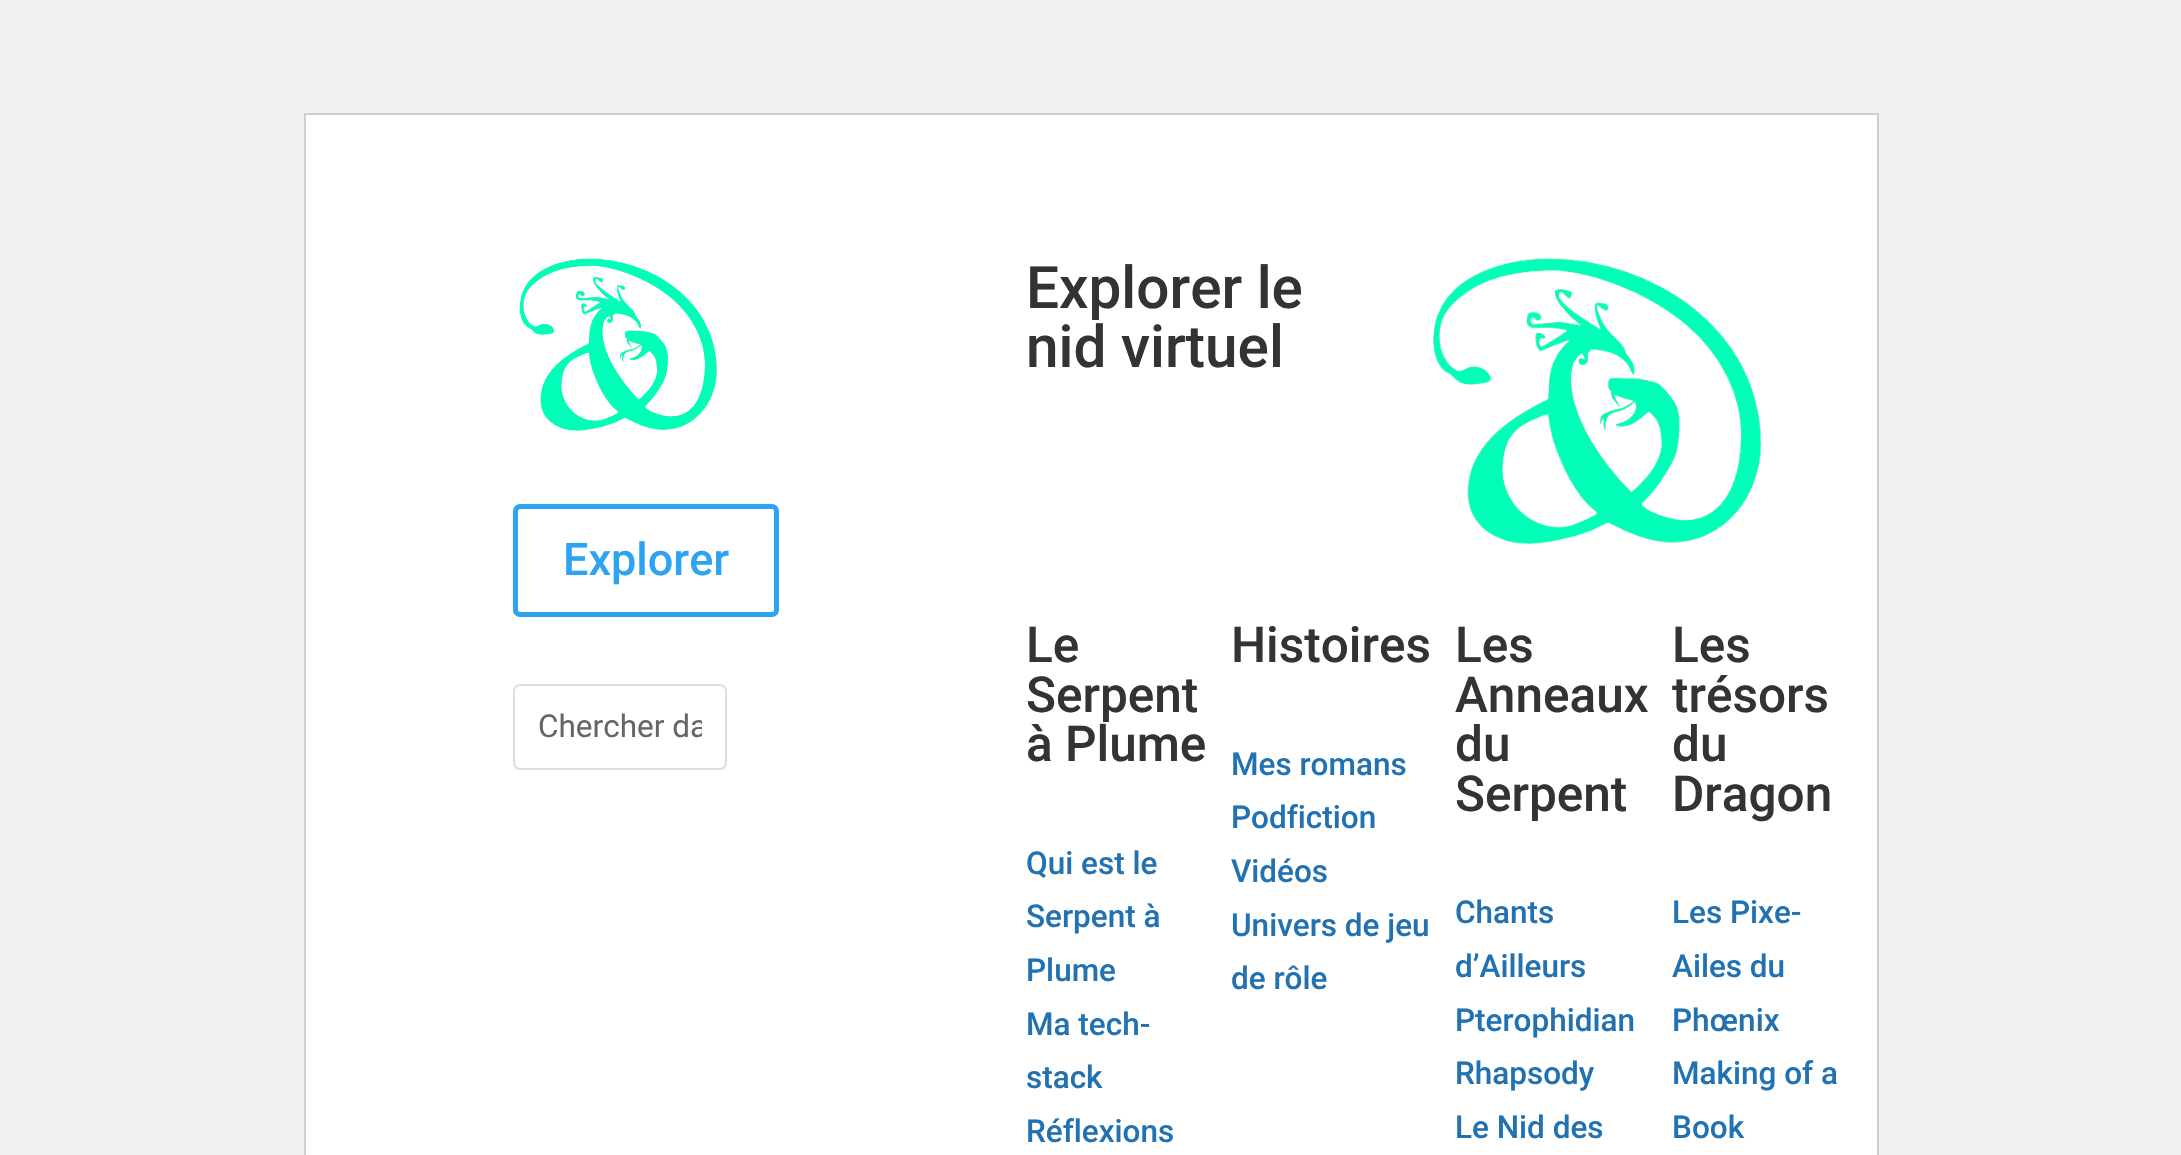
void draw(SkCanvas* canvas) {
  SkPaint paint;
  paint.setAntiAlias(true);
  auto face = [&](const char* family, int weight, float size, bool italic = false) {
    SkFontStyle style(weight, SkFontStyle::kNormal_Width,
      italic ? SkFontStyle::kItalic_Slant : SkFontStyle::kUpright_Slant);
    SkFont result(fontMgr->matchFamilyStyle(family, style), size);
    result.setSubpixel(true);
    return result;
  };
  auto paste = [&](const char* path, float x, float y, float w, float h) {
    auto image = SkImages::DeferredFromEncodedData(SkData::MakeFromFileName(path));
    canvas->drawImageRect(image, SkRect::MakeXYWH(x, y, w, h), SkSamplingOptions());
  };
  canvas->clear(0xfff1f1f1);
  paint.setColor(0xffffffff);
  canvas->drawRect(SkRect::MakeXYWH(305, 114, 1573, 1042), paint);
  paint.setStroke(true);
  paint.setStrokeWidth(2);
  paint.setColor(0xffccd0d4);
  canvas->drawRect(SkRect::MakeXYWH(305, 114, 1573, 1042), paint);
  paste("img/1.png", 519, 258, 198, 173);
  paint.setStrokeWidth(5);
  paint.setColor(0xff2ea3f2);
  canvas->drawRoundRect(SkRect::MakeXYWH(515.5f, 506.5f, 261, 108), 4.5f, 4.5f, paint);
  paint.setStrokeWidth(2);
  paint.setColor(0xffdddddd);
  canvas->drawRoundRect(SkRect::MakeXYWH(514, 685, 212, 84), 6, 6, paint);
  paste("img/2.png", 1433, 258, 329, 287);
  auto f0 = face("Roboto", 500, 45);
  paint.setStroke(false);
  paint.setColor(0xff2ea3f2);
  canvas->drawString("Explorer", 563, 575, f0, paint);
  canvas->save();
  canvas->clipRect(SkRect::MakeXYWH(538, 709, 164, 36));
  auto f1 = face("Roboto", 400, 31.5f);
  paint.setColor(0xff666666);
  canvas->drawString("Chercher da", 538, 737, f1, paint);
  canvas->restore();
  auto f2 = face("Roboto", 500, 58.5f);
  paint.setColor(0xff333333);
  canvas->drawString("Explorer le", 1026, 308, f2, paint);
  canvas->drawString("nid virtuel", 1026, 367, f2, paint);
  auto f3 = face("Roboto", 500, 49.5f);
  {
    const struct { const char* s; float x, y; } items[] = {
      {"Le", 1026, 662},
      {"Serpent", 1026, 712},
      {"à Plume", 1026, 761},
    };
    for (auto [s, x, y] : items) {
      canvas->drawString(s, x, y, f3, paint);
    }
  }
  auto f4 = face("Roboto", 500, 31.5f);
  paint.setColor(0xff2271b1);
  {
    const struct { const char* s; float x, y; } items[] = {
      {"Qui est le", 1026, 874},
      {"Serpent à", 1026, 927},
      {"Plume", 1026, 981},
      {"Ma tech-", 1026, 1035},
      {"stack", 1026, 1088},
      {"Réflexions", 1026, 1142},
    };
    for (auto [s, x, y] : items) {
      canvas->drawString(s, x, y, f4, paint);
    }
  }
  paint.setColor(0xff333333);
  canvas->drawString("Histoires", 1231, 662, f3, paint);
  paint.setColor(0xff2271b1);
  {
    const struct { const char* s; float x, y; } items[] = {
      {"Mes romans", 1231, 775},
      {"Podfiction", 1231, 828},
      {"Vidéos", 1231, 882},
      {"Univers de jeu", 1231, 936},
      {"de rôle", 1231, 989},
    };
    for (auto [s, x, y] : items) {
      canvas->drawString(s, x, y, f4, paint);
    }
  }
  paint.setColor(0xff333333);
  {
    const struct { const char* s; float x, y; } items[] = {
      {"Les", 1455, 662},
      {"Anneaux", 1455, 712},
      {"du", 1455, 761},
      {"Serpent", 1455, 811},
    };
    for (auto [s, x, y] : items) {
      canvas->drawString(s, x, y, f3, paint);
    }
  }
  paint.setColor(0xff2271b1);
  {
    const struct { const char* s; float x, y; } items[] = {
      {"Chants", 1455, 923},
      {"d’Ailleurs", 1455, 977},
      {"Pterophidian", 1455, 1031},
      {"Rhapsody", 1455, 1084},
      {"Le Nid des", 1455, 1138},
    };
    for (auto [s, x, y] : items) {
      canvas->drawString(s, x, y, f4, paint);
    }
  }
  paint.setColor(0xff333333);
  {
    const struct { const char* s; float x, y; } items[] = {
      {"Les", 1672, 662},
      {"trésors", 1672, 712},
      {"du", 1672, 761},
      {"Dragon", 1672, 811},
    };
    for (auto [s, x, y] : items) {
      canvas->drawString(s, x, y, f3, paint);
    }
  }
  paint.setColor(0xff2271b1);
  {
    const struct { const char* s; float x, y; } items[] = {
      {"Les Pixe-", 1672, 923},
      {"Ailes du", 1672, 977},
      {"Phœnix", 1672, 1031},
      {"Making of a", 1672, 1084},
      {"Book", 1672, 1138},
    };
    for (auto [s, x, y] : items) {
      canvas->drawString(s, x, y, f4, paint);
    }
  }
}
